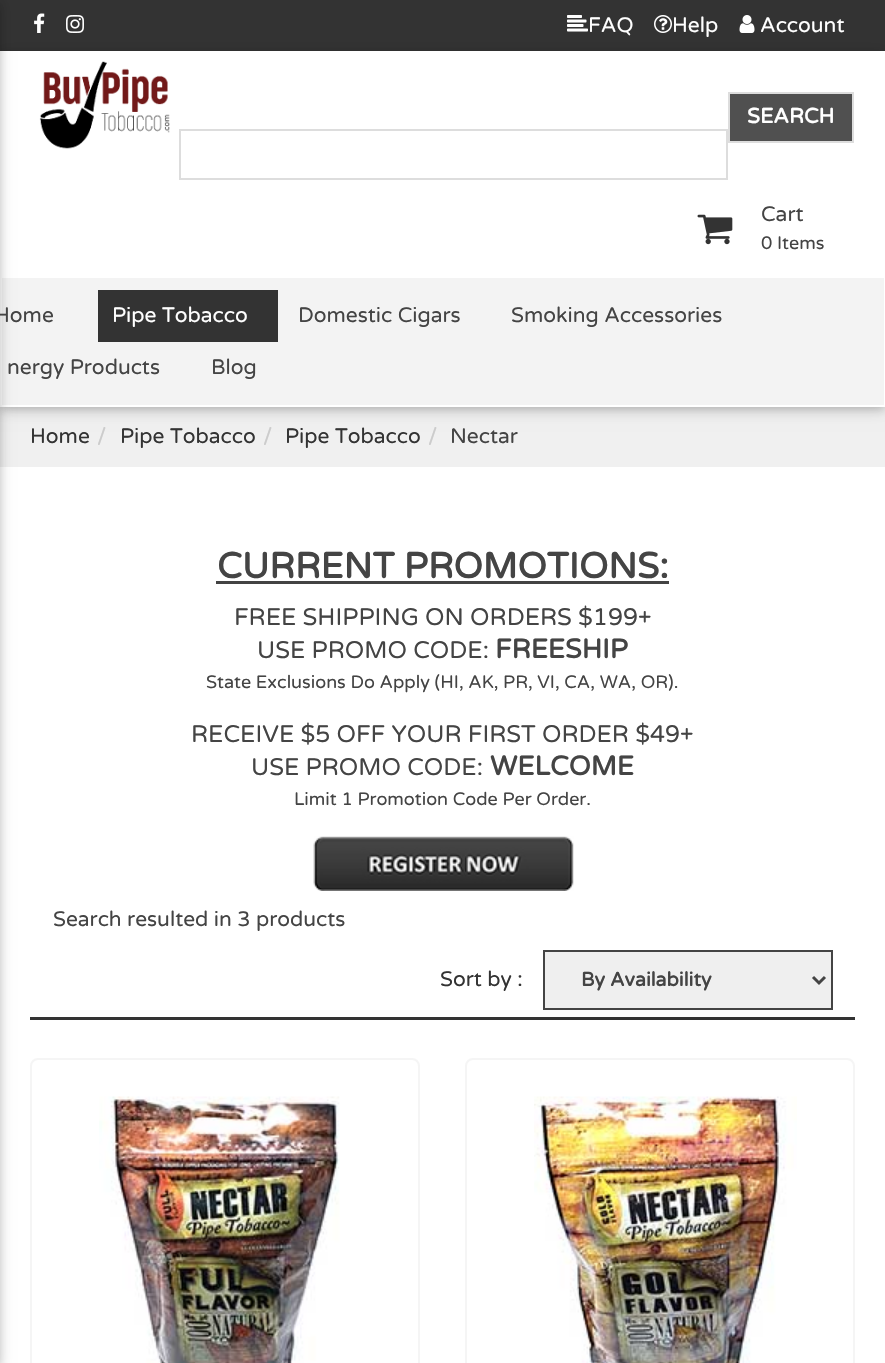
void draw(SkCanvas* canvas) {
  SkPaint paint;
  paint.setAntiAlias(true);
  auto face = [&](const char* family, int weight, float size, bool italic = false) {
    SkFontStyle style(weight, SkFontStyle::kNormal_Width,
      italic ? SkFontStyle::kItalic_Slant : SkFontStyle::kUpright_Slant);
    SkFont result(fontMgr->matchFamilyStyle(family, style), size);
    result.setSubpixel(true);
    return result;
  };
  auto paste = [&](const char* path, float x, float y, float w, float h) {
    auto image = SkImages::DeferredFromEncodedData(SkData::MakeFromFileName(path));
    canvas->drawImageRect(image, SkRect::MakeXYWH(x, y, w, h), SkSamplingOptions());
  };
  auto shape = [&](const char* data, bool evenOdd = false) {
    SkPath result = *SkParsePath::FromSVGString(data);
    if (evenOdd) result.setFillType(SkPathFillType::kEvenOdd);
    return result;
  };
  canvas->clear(0xffffffff);
  paint.setColor(0xff333333);
  canvas->drawRect(SkRect::MakeXYWH(0, 0, 885, 51), paint);
  paste("img/1.png", 34, 13, 11, 20);
  paste("img/2.png", 66, 15, 18, 18);
  paste("img/3.png", 567, 15, 21, 17);
  paste("img/4.png", 654, 15, 18, 18);
  paste("img/5.png", 739, 15, 16, 18);
  paint.setColor(0xfff0f0f0);
  canvas->drawRect(SkRect::MakeXYWH(0, 407, 885, 60), paint);
  paint.setColor(0x1f000000);
  paint.setMaskFilter(SkMaskFilter::MakeBlur(kNormal_SkBlurStyle, 7.5f));
  canvas->drawRect(SkRect::MakeXYWH(0, 54, 885, 356), paint);
  paint.setMaskFilter(nullptr);
  paint.setColor(0x29000000);
  paint.setMaskFilter(SkMaskFilter::MakeBlur(kNormal_SkBlurStyle, 4));
  canvas->drawRect(SkRect::MakeXYWH(0, 54, 885, 356), paint);
  paint.setMaskFilter(nullptr);
  paint.setColor(0xffffffff);
  canvas->drawRect(SkRect::MakeXYWH(0, 51, 885, 356), paint);
  paint.setColor(0xfff3f3f3);
  canvas->drawRect(SkRect::MakeXYWH(2, 278, 882, 127), paint);
  paint.setColor(0x1f000000);
  paint.setMaskFilter(SkMaskFilter::MakeBlur(kNormal_SkBlurStyle, 7.5f));
  canvas->drawRect(SkRect::MakeXYWH(-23, 3, 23, 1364), paint);
  paint.setMaskFilter(nullptr);
  paint.setColor(0x29000000);
  paint.setMaskFilter(SkMaskFilter::MakeBlur(kNormal_SkBlurStyle, 4));
  canvas->drawRect(SkRect::MakeXYWH(-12, 3, 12, 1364), paint);
  paint.setMaskFilter(nullptr);
  paste("img/6.png", 39, 61, 131, 88);
  paint.setColor(0xff505050);
  canvas->drawRect(SkRect::MakeXYWH(729, 93, 124, 49), paint);
  paint.setStroke(true);
  paint.setStrokeWidth(2);
  paint.setColor(0xffdddddd);
  canvas->drawRect(SkRect::MakeXYWH(729, 93, 124, 49), paint);
  canvas->drawRect(SkRect::MakeXYWH(180, 130, 547, 49), paint);
  paste("img/7.png", 697, 214, 36, 31);
  paint.setStroke(false);
  paint.setColor(0xff333333);
  canvas->drawRect(SkRect::MakeXYWH(98, 290, 180, 52), paint);
  paint.setColor(0xff434343);
  canvas->drawRect(SkRect::MakeXYWH(216, 581, 453, 3), paint);
  paste("img/8.png", 313, 836, 261, 55);
  paint.setColor(0xff333333);
  canvas->drawRect(SkRect::MakeXYWH(30, 1017, 825, 3), paint);
  paint.setColor(0xffefefef);
  canvas->drawRect(SkRect::MakeXYWH(544, 951, 288, 58), paint);
  paint.setStroke(true);
  paint.setColor(0xff444444);
  canvas->drawRect(SkRect::MakeXYWH(544, 951, 288, 58), paint);
  paint.setStrokeWidth(3);
  canvas->drawPath(shape("M813 977L819 983L825 977"), paint);
  paint.setStrokeWidth(2);
  paint.setColor(0xfff5f5f5);
  canvas->drawRoundRect(SkRect::MakeXYWH(31, 1059, 388, 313), 7, 7, paint);
  paste("img/9.png", 99, 1096, 241, 267);
  canvas->drawRoundRect(SkRect::MakeXYWH(466, 1059, 388, 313), 7, 7, paint);
  paste("img/10.png", 534, 1096, 263, 267);
  auto f0 = face("Varela Round", 400, 21);
  paint.setStroke(false);
  paint.setColor(0xffffffff);
  {
    const struct { const char* s; float x, y; } items[] = {
      {"FAQ", 588, 32},
      {"Help", 672, 32},
      {"Account", 760, 32},
    };
    for (auto [s, x, y] : items) {
      canvas->drawString(s, x, y, f0, paint);
    }
  }
  auto f1 = face("Varela Round", 700, 21);
  canvas->drawString("SEARCH", 747, 123, f1, paint);
  paint.setColor(0xff444444);
  canvas->drawString("Cart", 761, 221, f0, paint);
  auto f2 = face("Varela Round", 400, 18);
  canvas->drawString("0 Items", 761, 249, f2, paint);
  canvas->drawString("Home", -6, 322, f0, paint);
  paint.setColor(0xffffffff);
  canvas->drawString("Pipe Tobacco", 112, 322, f0, paint);
  paint.setColor(0xff444444);
  {
    const struct { const char* s; float x, y; } items[] = {
      {"Domestic Cigars", 298, 322},
      {"Smoking Accessories", 511, 322},
      {"nergy Products", 7, 374},
      {"Blog", 211, 374},
    };
    for (auto [s, x, y] : items) {
      canvas->drawString(s, x, y, f0, paint);
    }
  }
  paint.setColor(0xff333333);
  canvas->drawString("Home", 30, 443, f0, paint);
  paint.setColor(0xffcccccc);
  canvas->drawString("/", 97, 443, f0, paint);
  paint.setColor(0xff333333);
  canvas->drawString("Pipe Tobacco", 120, 443, f0, paint);
  paint.setColor(0xffcccccc);
  canvas->drawString("/", 263, 443, f0, paint);
  paint.setColor(0xff333333);
  canvas->drawString("Pipe Tobacco", 285, 443, f0, paint);
  paint.setColor(0xffcccccc);
  canvas->drawString("/", 428, 443, f0, paint);
  paint.setColor(0xff444444);
  canvas->drawString("Nectar", 450, 443, f0, paint);
  auto f3 = face("Varela Round", 700, 36);
  canvas->drawString("CURRENT PROMOTIONS:", 217, 578, f3, paint);
  auto f4 = face("Varela Round", 400, 24);
  canvas->drawString("FREE SHIPPING ON ORDERS $199+", 234, 625, f4, paint);
  canvas->drawString("USE PROMO CODE:", 257, 658, f4, paint);
  auto f5 = face("Varela Round", 700, 27);
  canvas->drawString("FREESHIP", 495, 658, f5, paint);
  canvas->drawString("State Exclusions Do Apply (HI, AK, PR, VI, CA, WA, OR).", 206, 688, f2, paint);
  canvas->drawString("RECEIVE $5 OFF YOUR FIRST ORDER $49+", 191, 742, f4, paint);
  canvas->drawString("USE PROMO CODE:", 251, 775, f4, paint);
  canvas->drawString("WELCOME", 490, 775, f5, paint);
  canvas->drawString("Limit 1 Promotion Code Per Order.", 294, 805, f2, paint);
  canvas->drawString("Search resulted in 3 products", 53, 926, f0, paint);
  paint.setColor(0xff333333);
  canvas->drawString("Sort by :", 440, 986, f0, paint);
  auto f6 = face("Varela Round", 700, 19.5f);
  paint.setColor(0xff444444);
  canvas->drawString("By Availability", 581, 986, f6, paint);
}
